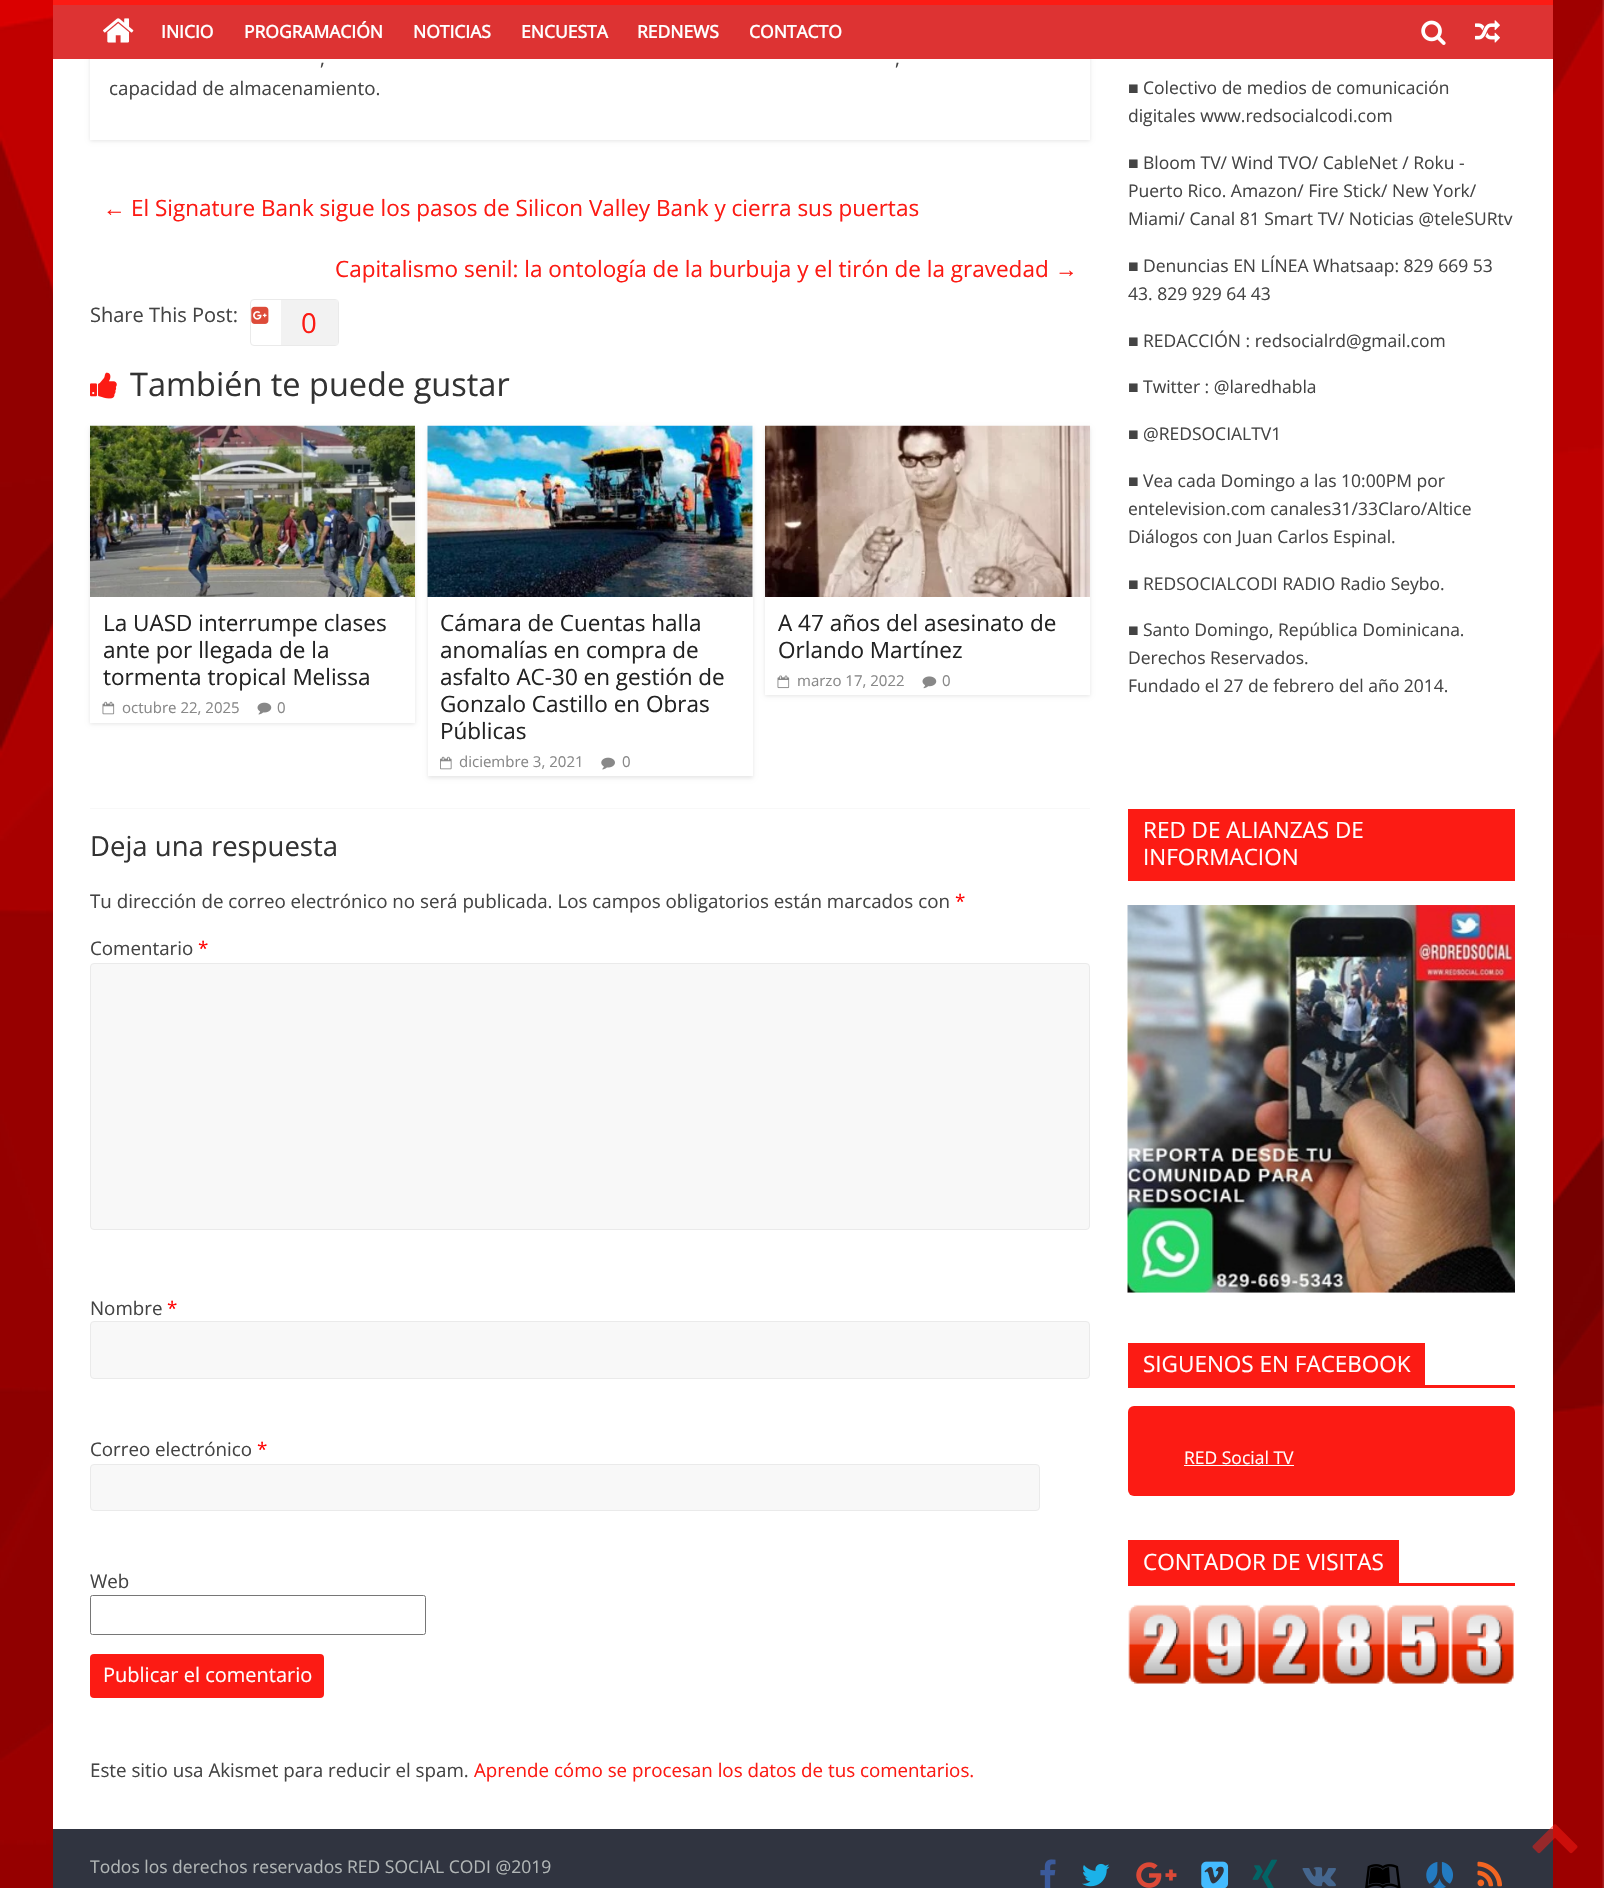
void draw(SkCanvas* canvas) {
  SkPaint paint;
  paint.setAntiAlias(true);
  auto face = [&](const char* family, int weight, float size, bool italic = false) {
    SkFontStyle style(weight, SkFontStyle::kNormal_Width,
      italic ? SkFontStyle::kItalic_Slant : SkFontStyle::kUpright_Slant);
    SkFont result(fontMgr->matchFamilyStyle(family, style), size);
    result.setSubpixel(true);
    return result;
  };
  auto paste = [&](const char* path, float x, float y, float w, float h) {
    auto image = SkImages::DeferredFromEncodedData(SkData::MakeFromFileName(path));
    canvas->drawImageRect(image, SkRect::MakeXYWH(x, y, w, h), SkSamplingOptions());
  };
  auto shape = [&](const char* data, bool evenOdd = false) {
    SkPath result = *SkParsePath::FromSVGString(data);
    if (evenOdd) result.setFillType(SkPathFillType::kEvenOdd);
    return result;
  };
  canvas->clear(0xffffffff);
  paste("img/1.png", 0, 0, 1604, 1888);
  paint.setColor(0xffffffff);
  canvas->drawRect(SkRect::MakeXYWH(53, 59, 1500, 1770), paint);
  canvas->save();
  canvas->clipPath(shape("M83 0H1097V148H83ZM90-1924H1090V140H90Z", true), true);
  paint.setColor(0x1a000000);
  paint.setMaskFilter(SkMaskFilter::MakeBlur(kNormal_SkBlurStyle, 2));
  canvas->drawRect(SkRect::MakeXYWH(90, -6, 1000, 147), paint);
  paint.setMaskFilter(nullptr);
  canvas->restore();
  paint.setColor(0xffdd3333);
  canvas->drawRect(SkRect::MakeXYWH(53, 5, 1500, 54), paint);
  paint.setColor(0xfffc1b14);
  canvas->drawRect(SkRect::MakeXYWH(53, 0, 1500, 5), paint);
  paste("img/2.png", 103, 18, 31, 25);
  paste("img/3.png", 1421, 20, 25, 25);
  paste("img/4.png", 1475, 20, 25, 23);
  paint.setStroke(true);
  paint.setStrokeWidth(1);
  paint.setColor(0xffeaeaea);
  canvas->drawRoundRect(SkRect::MakeXYWH(250.5f, 299.5f, 88, 46), 3.5f, 3.5f, paint);
  paste("img/5.png", 251, 306, 18, 18);
  paint.setStroke(false);
  paint.setColor(0xfff2f2f2);
  canvas->drawRect(SkRect::MakeXYWH(281, 300, 57, 45), paint);
  paste("img/6.png", 90, 372, 27, 27);
  canvas->save();
  canvas->clipPath(shape("M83 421H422V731H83ZM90 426H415V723H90Z", true), true);
  paint.setColor(0x1a000000);
  paint.setMaskFilter(SkMaskFilter::MakeBlur(kNormal_SkBlurStyle, 2));
  canvas->drawRect(SkRect::MakeXYWH(90, 428, 325, 296), paint);
  paint.setMaskFilter(nullptr);
  canvas->restore();
  paste("img/7.png", 90, 425, 325, 172);
  paste("img/8.png", 102, 701, 13, 14);
  paste("img/9.png", 257, 702, 15, 13);
  canvas->save();
  canvas->clipPath(shape("M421 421H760V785H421ZM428 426H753V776H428Z", true), true);
  paint.setMaskFilter(SkMaskFilter::MakeBlur(kNormal_SkBlurStyle, 2));
  canvas->drawRect(SkRect::MakeXYWH(428, 428, 325, 350), paint);
  paint.setMaskFilter(nullptr);
  canvas->restore();
  paste("img/10.png", 427, 425, 326, 172);
  paste("img/11.png", 440, 756, 12, 14);
  paste("img/12.png", 601, 757, 14, 13);
  canvas->save();
  canvas->clipPath(shape("M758 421H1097V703H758ZM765 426H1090V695H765Z", true), true);
  paint.setMaskFilter(SkMaskFilter::MakeBlur(kNormal_SkBlurStyle, 2));
  canvas->drawRect(SkRect::MakeXYWH(765, 428, 325, 268), paint);
  paint.setMaskFilter(nullptr);
  canvas->restore();
  paste("img/13.png", 765, 425, 325, 172);
  paste("img/14.png", 777, 675, 13, 14);
  paste("img/15.png", 922, 676, 15, 13);
  paint.setColor(0xfff8f8f8);
  canvas->drawRect(SkRect::MakeXYWH(90, 808, 1000, 1), paint);
  canvas->drawRoundRect(SkRect::MakeXYWH(90.5f, 963.5f, 999, 266), 3.5f, 3.5f, paint);
  paint.setStroke(true);
  paint.setColor(0xffeaeaea);
  canvas->drawRoundRect(SkRect::MakeXYWH(90.5f, 963.5f, 999, 266), 3.5f, 3.5f, paint);
  paint.setStroke(false);
  paint.setColor(0xfff8f8f8);
  canvas->drawRoundRect(SkRect::MakeXYWH(90.5f, 1321.5f, 999, 57), 3.5f, 3.5f, paint);
  paint.setStroke(true);
  paint.setColor(0xffeaeaea);
  canvas->drawRoundRect(SkRect::MakeXYWH(90.5f, 1321.5f, 999, 57), 3.5f, 3.5f, paint);
  paint.setStroke(false);
  paint.setColor(0xfff8f8f8);
  canvas->drawRoundRect(SkRect::MakeXYWH(90.5f, 1464.5f, 949, 46), 3.5f, 3.5f, paint);
  paint.setStroke(true);
  paint.setColor(0xffeaeaea);
  canvas->drawRoundRect(SkRect::MakeXYWH(90.5f, 1464.5f, 949, 46), 3.5f, 3.5f, paint);
  paint.setColor(0xff767676);
  canvas->drawRoundRect(SkRect::MakeXYWH(90.5f, 1595.5f, 335, 39), 2, 2, paint);
  paint.setStroke(false);
  paint.setColor(0xfffc1b14);
  canvas->drawRoundRect(SkRect::MakeXYWH(90, 1654, 234, 44), 4, 4, paint);
  canvas->drawRect(SkRect::MakeXYWH(1128, 809, 387, 72), paint);
  paste("img/16.png", 1127, 905, 388, 388);
  canvas->drawRect(SkRect::MakeXYWH(1128, 1385, 387, 3), paint);
  canvas->drawRect(SkRect::MakeXYWH(1128, 1343, 297, 42), paint);
  canvas->drawRoundRect(SkRect::MakeXYWH(1128, 1406, 387, 90), 6, 6, paint);
  {
    const struct { float x, y, w, h; SkColor color; } items[] = {
      {1184, 1465, 110, 1, 0xffffffff},
      {1128, 1583, 387, 3, 0xfffc1b14},
      {1128, 1540, 271, 43, 0xfffc1b14},
    };
    for (auto [x, y, w, h, color] : items) {
      paint.setColor(color);
      canvas->drawRect(SkRect::MakeXYWH(x, y, w, h), paint);
    }
  }
  paste("img/17.png", 1128, 1604, 386, 80);
  paint.setColor(0xff303440);
  canvas->drawRect(SkRect::MakeXYWH(53, 1829, 1500, 59), paint);
  paste("img/18.png", 1532, 1824, 46, 30);
  paste("img/19.png", 1040, 1859, 16, 29);
  paste("img/20.png", 1082, 1863, 28, 24);
  paste("img/21.png", 1136, 1862, 41, 26);
  paste("img/22.png", 1201, 1861, 28, 27);
  paste("img/23.png", 1252, 1859, 25, 29);
  paste("img/24.png", 1302, 1867, 34, 20);
  paste("img/25.png", 1365, 1864, 36, 24);
  paste("img/26.png", 1426, 1862, 27, 26);
  paste("img/27.png", 1477, 1861, 25, 26);
  auto f0 = face("Open Sans", 700, 17.5f);
  paint.setColor(0xffffffff);
  {
    const struct { const char* s; float x, y; } items[] = {
      {"INICIO", 161, 38},
      {"PROGRAMACIÓN", 244, 38},
      {"NOTICIAS", 413, 38},
      {"ENCUESTA", 521, 38},
      {"REDNEWS", 637, 38},
      {"CONTACTO", 749, 38},
    };
    for (auto [s, x, y] : items) {
      canvas->drawString(s, x, y, f0, paint);
    }
  }
  auto f1 = face("Open Sans", 400, 18.75f);
  paint.setColor(0xff444444);
  {
    const struct { const char* s; float x, y; } items[] = {
      {",", 320, 65},
      {",", 895, 65},
      {"capacidad de almacenamiento.", 109, 95},
    };
    for (auto [s, x, y] : items) {
      canvas->drawString(s, x, y, f1, paint);
    }
  }
  auto f2 = face("Liberation Serif", 400, 22.5f);
  paint.setColor(0xfffc1b14);
  canvas->drawString("←", 103, 216, f2, paint);
  auto f3 = face("Open Sans", 400, 22.5f);
  canvas->drawString("El Signature Bank sigue los pasos de Silicon Valley Bank y cierra sus puertas", 131, 216, f3, paint);
  canvas->drawString("Capitalismo senil: la ontología de la burbuja y el tirón de la gravedad", 335, 277, f3, paint);
  canvas->drawString("→", 1055, 277, f2, paint);
  auto f4 = face("Open Sans", 400, 20);
  paint.setColor(0xff444444);
  canvas->drawString("Share This Post:", 90, 322, f4, paint);
  auto f5 = face("Open Sans", 400, 27.5f);
  paint.setColor(0xfffc1b14);
  canvas->drawString("0", 301, 333, f5, paint);
  auto f6 = face("Open Sans", 400, 32.5f);
  paint.setColor(0xff333333);
  canvas->drawString("También te puede gustar", 130, 396, f6, paint);
  paint.setColor(0xff232323);
  {
    const struct { const char* s; float x, y; } items[] = {
      {"La UASD interrumpe clases", 103, 631},
      {"ante por llegada de la", 103, 658},
      {"tormenta tropical Melissa", 103, 685},
    };
    for (auto [s, x, y] : items) {
      canvas->drawString(s, x, y, f3, paint);
    }
  }
  auto f7 = face("Open Sans", 400, 15);
  paint.setColor(0xff888888);
  canvas->drawString("octubre 22, 2025", 122, 713, f7, paint);
  canvas->drawString("0", 277, 713, f7, paint);
  paint.setColor(0xff232323);
  {
    const struct { const char* s; float x, y; } items[] = {
      {"Cámara de Cuentas halla", 440, 631},
      {"anomalías en compra de", 440, 658},
      {"asfalto AC-30 en gestión de", 440, 685},
      {"Gonzalo Castillo en Obras", 440, 712},
      {"Públicas", 440, 739},
    };
    for (auto [s, x, y] : items) {
      canvas->drawString(s, x, y, f3, paint);
    }
  }
  paint.setColor(0xff888888);
  canvas->drawString("diciembre 3, 2021", 459, 767, f7, paint);
  canvas->drawString("0", 622, 767, f7, paint);
  paint.setColor(0xff232323);
  canvas->drawString("A 47 años del asesinato de", 778, 631, f3, paint);
  canvas->drawString("Orlando Martínez", 778, 658, f3, paint);
  paint.setColor(0xff888888);
  canvas->drawString("marzo 17, 2022", 797, 686, f7, paint);
  canvas->drawString("0", 942, 686, f7, paint);
  paint.setColor(0xff333333);
  canvas->drawString("Deja una respuesta", 90, 856, f5, paint);
  paint.setColor(0xff444444);
  canvas->drawString("Tu dirección de correo electrónico no será publicada. Los campos obligatorios están marcados con", 90, 908, f1, paint);
  paint.setColor(0xffff0000);
  canvas->drawString("*", 955, 908, f1, paint);
  paint.setColor(0xff444444);
  canvas->drawString("Comentario", 90, 955, f1, paint);
  paint.setColor(0xffff0000);
  canvas->drawString("*", 198, 955, f1, paint);
  paint.setColor(0xff444444);
  canvas->drawString("Nombre", 90, 1315, f1, paint);
  paint.setColor(0xffff0000);
  canvas->drawString("*", 167, 1315, f1, paint);
  paint.setColor(0xff444444);
  canvas->drawString("Correo electrónico", 90, 1456, f1, paint);
  paint.setColor(0xffff0000);
  canvas->drawString("*", 257, 1456, f1, paint);
  paint.setColor(0xff444444);
  canvas->drawString("Web", 90, 1588, f1, paint);
  paint.setColor(0xffffffff);
  canvas->drawString("Publicar el comentario", 103, 1682, f4, paint);
  paint.setColor(0xff444444);
  canvas->drawString("Este sitio usa Akismet para reducir el spam.", 90, 1777, f1, paint);
  paint.setColor(0xfffc1b14);
  canvas->drawString("Aprende cómo se procesan los datos de tus comentarios.", 474, 1777, f1, paint);
  auto f8 = face("Liberation Serif", 400, 17.5f);
  paint.setColor(0xff444444);
  canvas->drawString("■", 1128, 94, f8, paint);
  auto f9 = face("Open Sans", 400, 17.5f);
  canvas->drawString("Colectivo de medios de comunicación", 1143, 94, f9, paint);
  canvas->drawString("digitales www.redsocialcodi.com", 1128, 122, f9, paint);
  canvas->drawString("■", 1128, 169, f8, paint);
  {
    const struct { const char* s; float x, y; } items[] = {
      {"Bloom TV/ Wind TVO/ CableNet / Roku -", 1143, 169},
      {"Puerto Rico. Amazon/ Fire Stick/ New York/", 1128, 197},
      {"Miami/ Canal 81 Smart TV/ Noticias @teleSURtv", 1128, 225},
    };
    for (auto [s, x, y] : items) {
      canvas->drawString(s, x, y, f9, paint);
    }
  }
  canvas->drawString("■", 1128, 272, f8, paint);
  canvas->drawString("Denuncias EN LÍNEA Whatsaap: 829 669 53", 1143, 272, f9, paint);
  canvas->drawString("43. 829 929 64 43", 1128, 300, f9, paint);
  canvas->drawString("■", 1128, 347, f8, paint);
  canvas->drawString("REDACCIÓN : redsocialrd@gmail.com", 1143, 347, f9, paint);
  canvas->drawString("■", 1128, 393, f8, paint);
  canvas->drawString("Twitter : @laredhabla", 1143, 393, f9, paint);
  canvas->drawString("■", 1128, 440, f8, paint);
  canvas->drawString("@REDSOCIALTV1", 1143, 440, f9, paint);
  canvas->drawString("■", 1128, 487, f8, paint);
  {
    const struct { const char* s; float x, y; } items[] = {
      {"Vea cada Domingo a las 10:00PM por", 1143, 487},
      {"entelevision.com canales31/33Claro/Altice", 1128, 515},
      {"Diálogos con Juan Carlos Espinal.", 1128, 543},
    };
    for (auto [s, x, y] : items) {
      canvas->drawString(s, x, y, f9, paint);
    }
  }
  canvas->drawString("■", 1128, 590, f8, paint);
  canvas->drawString("REDSOCIALCODI RADIO Radio Seybo.", 1143, 590, f9, paint);
  canvas->drawString("■", 1128, 636, f8, paint);
  {
    const struct { const char* s; float x, y; } items[] = {
      {"Santo Domingo, República Dominicana.", 1143, 636},
      {"Derechos Reservados.", 1128, 664},
      {"Fundado el 27 de febrero del año 2014.", 1128, 692},
    };
    for (auto [s, x, y] : items) {
      canvas->drawString(s, x, y, f9, paint);
    }
  }
  paint.setColor(0xffffffff);
  {
    const struct { const char* s; float x, y; } items[] = {
      {"RED DE ALIANZAS DE", 1143, 838},
      {"INFORMACION", 1143, 865},
      {"SIGUENOS EN FACEBOOK", 1143, 1372},
    };
    for (auto [s, x, y] : items) {
      canvas->drawString(s, x, y, f3, paint);
    }
  }
  canvas->drawString("RED Social TV", 1184, 1464, f9, paint);
  canvas->drawString("CONTADOR DE VISITAS", 1143, 1570, f3, paint);
  paint.setColor(0xffb1b6b6);
  canvas->drawString("Todos los derechos reservados RED SOCIAL CODI @2019", 90, 1873, f9, paint);
}
